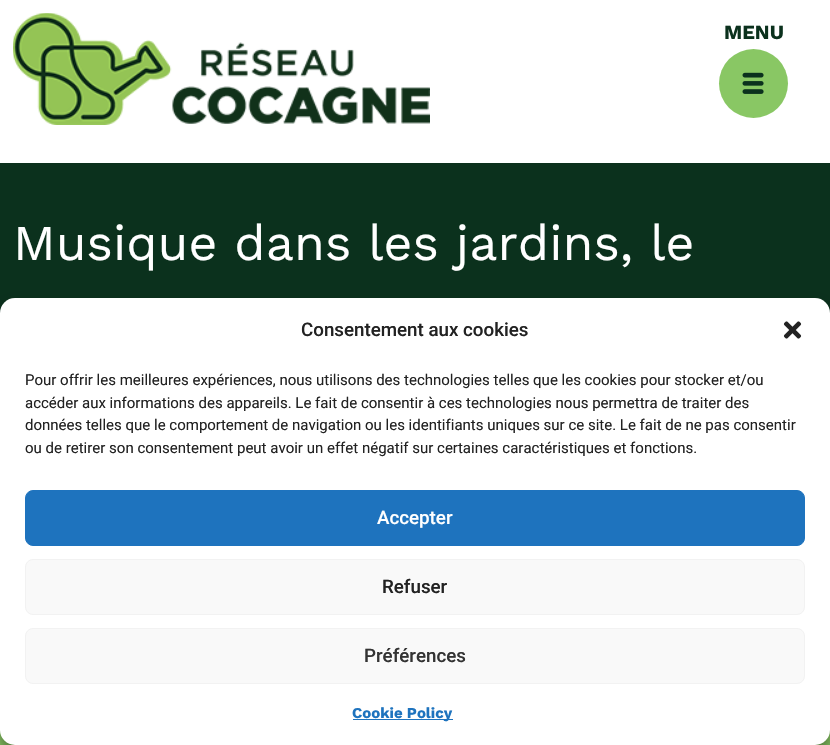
void draw(SkCanvas* canvas) {
  SkPaint paint;
  paint.setAntiAlias(true);
  auto face = [&](const char* family, int weight, float size, bool italic = false) {
    SkFontStyle style(weight, SkFontStyle::kNormal_Width,
      italic ? SkFontStyle::kItalic_Slant : SkFontStyle::kUpright_Slant);
    SkFont result(fontMgr->matchFamilyStyle(family, style), size);
    result.setSubpixel(true);
    return result;
  };
  auto paste = [&](const char* path, float x, float y, float w, float h) {
    auto image = SkImages::DeferredFromEncodedData(SkData::MakeFromFileName(path));
    canvas->drawImageRect(image, SkRect::MakeXYWH(x, y, w, h), SkSamplingOptions());
  };
  canvas->clear(0xffffffff);
  paste("img/1.png", 13, 13, 417, 112);
  paint.setColor(0xff89c764);
  canvas->drawRect(SkRect::MakeXYWH(0, 730, 830, 15), paint);
  canvas->drawCircle(753.5f, 83.5f, 34.5f, paint);
  paste("img/2.png", 742, 72, 22, 22);
  paint.setColor(0xff0b311d);
  canvas->drawRect(SkRect::MakeXYWH(0, 163, 830, 150), paint);
  paint.setColor(0x3b000000);
  paint.setMaskFilter(SkMaskFilter::MakeBlur(kNormal_SkBlurStyle, 4));
  canvas->drawRoundRect(SkRect::MakeXYWH(0, 305, 830, 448), 15, 15, paint);
  paint.setMaskFilter(nullptr);
  paint.setColor(0x30000000);
  paint.setMaskFilter(SkMaskFilter::MakeBlur(kNormal_SkBlurStyle, 12.5f));
  canvas->drawRoundRect(SkRect::MakeXYWH(0, 310, 830, 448), 15, 15, paint);
  paint.setMaskFilter(nullptr);
  paint.setColor(0xffffffff);
  canvas->drawRoundRect(SkRect::MakeXYWH(0, 298, 830, 447), 15, 15, paint);
  paste("img/3.png", 783, 321, 19, 18);
  paint.setColor(0xff1e73be);
  canvas->drawRoundRect(SkRect::MakeXYWH(25.5f, 490.5f, 779, 55), 7.5f, 7.5f, paint);
  paint.setStroke(true);
  paint.setStrokeWidth(1);
  canvas->drawRoundRect(SkRect::MakeXYWH(25.5f, 490.5f, 779, 55), 7.5f, 7.5f, paint);
  paint.setStroke(false);
  paint.setColor(0xfff9f9f9);
  canvas->drawRoundRect(SkRect::MakeXYWH(25.5f, 559.5f, 779, 55), 7.5f, 7.5f, paint);
  paint.setStroke(true);
  paint.setColor(0xfff2f2f2);
  canvas->drawRoundRect(SkRect::MakeXYWH(25.5f, 559.5f, 779, 55), 7.5f, 7.5f, paint);
  paint.setStroke(false);
  paint.setColor(0xfff9f9f9);
  canvas->drawRoundRect(SkRect::MakeXYWH(25.5f, 628.5f, 779, 55), 7.5f, 7.5f, paint);
  paint.setStroke(true);
  paint.setColor(0xfff2f2f2);
  canvas->drawRoundRect(SkRect::MakeXYWH(25.5f, 628.5f, 779, 55), 7.5f, 7.5f, paint);
  paint.setStroke(false);
  paint.setColor(0xff1e73be);
  canvas->drawRect(SkRect::MakeXYWH(353, 719, 100, 1), paint);
  auto f0 = face("Work Sans", 700, 20);
  paint.setColor(0xff0b311d);
  canvas->drawString("MENU", 724, 39, f0, paint);
  auto f1 = face("Work Sans", 400, 50);
  paint.setColor(0xffffffff);
  canvas->drawString("Musique dans les jardins, le", 13, 260, f1, paint);
  auto f2 = face("Roboto", 500, 18.75f);
  paint.setColor(0xff222222);
  canvas->drawString("Consentement aux cookies", 301, 336, f2, paint);
  auto f3 = face("Roboto", 400, 15);
  {
    const struct { const char* s; float x, y; } items[] = {
      {"Pour offrir les meilleures expériences, nous utilisons des technologies telles que les cookies pour stocker et/ou", 25, 385},
      {"accéder aux informations des appareils. Le fait de consentir à ces technologies nous permettra de traiter des", 25, 408},
      {"données telles que le comportement de navigation ou les identifiants uniques sur ce site. Le fait de ne pas consentir", 25, 430},
      {"ou de retirer son consentement peut avoir un effet négatif sur certaines caractéristiques et fonctions.", 25, 453},
    };
    for (auto [s, x, y] : items) {
      canvas->drawString(s, x, y, f3, paint);
    }
  }
  paint.setColor(0xffffffff);
  canvas->drawString("Accepter", 377, 524, f2, paint);
  paint.setColor(0xff222222);
  canvas->drawString("Refuser", 382, 593, f2, paint);
  paint.setColor(0xff333333);
  canvas->drawString("Préférences", 364, 662, f2, paint);
  auto f4 = face("Work Sans", 700, 15);
  paint.setColor(0xff1e73be);
  canvas->drawString("Cookie Policy", 352, 718, f4, paint);
}
